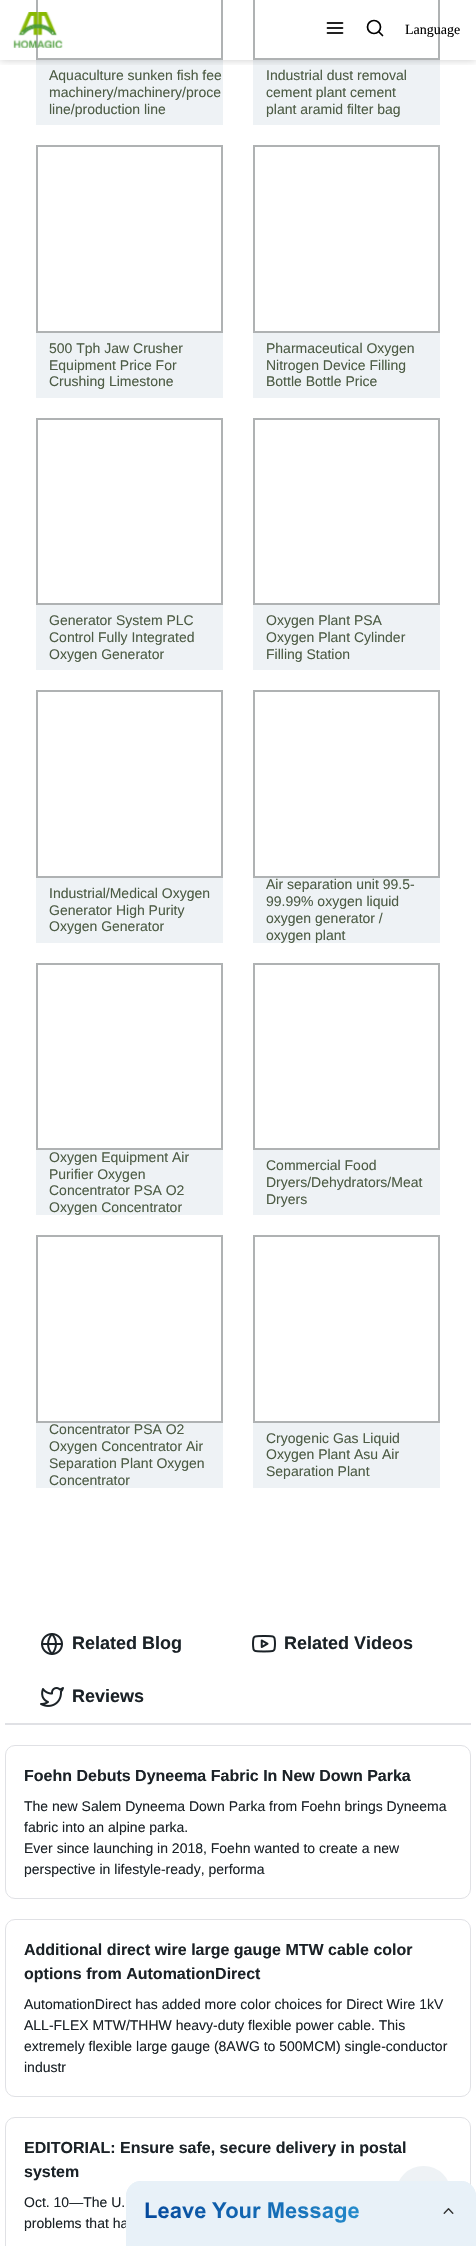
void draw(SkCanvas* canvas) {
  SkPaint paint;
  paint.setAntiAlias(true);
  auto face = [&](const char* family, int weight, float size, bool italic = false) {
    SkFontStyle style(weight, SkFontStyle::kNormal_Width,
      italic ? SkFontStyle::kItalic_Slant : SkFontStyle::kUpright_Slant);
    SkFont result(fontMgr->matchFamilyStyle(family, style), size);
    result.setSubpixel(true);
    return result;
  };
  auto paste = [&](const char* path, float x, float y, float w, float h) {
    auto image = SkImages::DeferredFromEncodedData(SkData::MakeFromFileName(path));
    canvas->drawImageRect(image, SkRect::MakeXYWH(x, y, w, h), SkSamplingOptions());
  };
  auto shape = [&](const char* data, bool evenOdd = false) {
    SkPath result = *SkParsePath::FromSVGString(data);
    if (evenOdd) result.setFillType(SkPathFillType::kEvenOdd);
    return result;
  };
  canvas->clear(0xffffffff);
  paint.setStroke(true);
  paint.setStrokeWidth(2);
  paint.setColor(0xffafb2b3);
  canvas->drawRect(SkRect::MakeXYWH(37, -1, 185, 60), paint);
  paint.setStroke(false);
  paint.setColor(0xffeef2f5);
  canvas->drawRect(SkRect::MakeXYWH(36, 60, 187, 65), paint);
  paint.setStroke(true);
  paint.setColor(0xffafb2b3);
  canvas->drawRect(SkRect::MakeXYWH(254, -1, 185, 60), paint);
  paint.setStroke(false);
  paint.setColor(0xffeef2f5);
  canvas->drawRect(SkRect::MakeXYWH(253, 60, 187, 65), paint);
  canvas->save();
  canvas->clipRect(SkRect::MakeXYWH(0, 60, 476, 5));
  paint.setColor(0x33000000);
  paint.setMaskFilter(SkMaskFilter::MakeBlur(kNormal_SkBlurStyle, 4));
  canvas->drawRect(SkRect::MakeXYWH(0, 0, 476, 60), paint);
  paint.setMaskFilter(nullptr);
  canvas->restore();
  paste("img/1.png", 13, 12, 50, 36);
  paste("img/2.png", 326, 22, 18, 12);
  paint.setStroke(true);
  paint.setStrokeWidth(1.7f);
  paint.setColor(0xff000000);
  canvas->drawCircle(374, 27, 6.5f, paint);
  paint.setStrokeCap(SkPaint::kRound_Cap);
  paint.setStrokeJoin(SkPaint::kRound_Join);
  canvas->drawPath(shape("M382.5 35.5L379 32"), paint);
  paint.setStrokeWidth(2);
  paint.setStrokeCap(SkPaint::kButt_Cap);
  paint.setStrokeJoin(SkPaint::kMiter_Join);
  paint.setColor(0xffafb2b3);
  canvas->drawRect(SkRect::MakeXYWH(37, 146, 185, 186), paint);
  paint.setStroke(false);
  paint.setColor(0xffeef2f5);
  canvas->drawRect(SkRect::MakeXYWH(36, 333, 187, 65), paint);
  paint.setStroke(true);
  paint.setColor(0xffafb2b3);
  canvas->drawRect(SkRect::MakeXYWH(254, 146, 185, 186), paint);
  paint.setStroke(false);
  paint.setColor(0xffeef2f5);
  canvas->drawRect(SkRect::MakeXYWH(253, 333, 187, 65), paint);
  paint.setStroke(true);
  paint.setColor(0xffafb2b3);
  canvas->drawRect(SkRect::MakeXYWH(37, 419, 185, 185), paint);
  paint.setStroke(false);
  paint.setColor(0xffeef2f5);
  canvas->drawRect(SkRect::MakeXYWH(36, 605, 187, 65), paint);
  paint.setStroke(true);
  paint.setColor(0xffafb2b3);
  canvas->drawRect(SkRect::MakeXYWH(254, 419, 185, 185), paint);
  paint.setStroke(false);
  paint.setColor(0xffeef2f5);
  canvas->drawRect(SkRect::MakeXYWH(253, 605, 187, 65), paint);
  paint.setStroke(true);
  paint.setColor(0xffafb2b3);
  canvas->drawRect(SkRect::MakeXYWH(37, 691, 185, 186), paint);
  paint.setStroke(false);
  paint.setColor(0xffeef2f5);
  canvas->drawRect(SkRect::MakeXYWH(36, 878, 187, 65), paint);
  paint.setStroke(true);
  paint.setColor(0xffafb2b3);
  canvas->drawRect(SkRect::MakeXYWH(254, 691, 185, 186), paint);
  paint.setStroke(false);
  paint.setColor(0xffeef2f5);
  canvas->drawRect(SkRect::MakeXYWH(253, 878, 187, 65), paint);
  paint.setStroke(true);
  paint.setColor(0xffafb2b3);
  canvas->drawRect(SkRect::MakeXYWH(37, 964, 185, 185), paint);
  paint.setStroke(false);
  paint.setColor(0xffeef2f5);
  canvas->drawRect(SkRect::MakeXYWH(36, 1150, 187, 65), paint);
  paint.setStroke(true);
  paint.setColor(0xffafb2b3);
  canvas->drawRect(SkRect::MakeXYWH(254, 964, 185, 185), paint);
  paint.setStroke(false);
  paint.setColor(0xffeef2f5);
  canvas->drawRect(SkRect::MakeXYWH(253, 1150, 187, 65), paint);
  paint.setStroke(true);
  paint.setColor(0xffafb2b3);
  canvas->drawRect(SkRect::MakeXYWH(37, 1236, 185, 186), paint);
  paint.setStroke(false);
  paint.setColor(0xffeef2f5);
  canvas->drawRect(SkRect::MakeXYWH(36, 1423, 187, 65), paint);
  paint.setStroke(true);
  paint.setColor(0xffafb2b3);
  canvas->drawRect(SkRect::MakeXYWH(254, 1236, 185, 186), paint);
  paint.setStroke(false);
  paint.setColor(0xffeef2f5);
  canvas->drawRect(SkRect::MakeXYWH(253, 1423, 187, 65), paint);
  paste("img/3.png", 41, 1633, 22, 22);
  paste("img/4.png", 252, 1635, 24, 18);
  paste("img/5.png", 40, 1687, 24, 20);
  paint.setColor(0xffe0e1e5);
  canvas->drawRect(SkRect::MakeXYWH(5, 1723, 466, 2), paint);
  paint.setStroke(true);
  paint.setStrokeWidth(1);
  canvas->drawRoundRect(SkRect::MakeXYWH(5.5f, 1745.5f, 465, 153), 9.5f, 9.5f, paint);
  canvas->drawRoundRect(SkRect::MakeXYWH(5.5f, 1919.5f, 465, 177), 9.5f, 9.5f, paint);
  canvas->drawRoundRect(SkRect::MakeXYWH(5.5f, 2117.5f, 465, 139), 9.5f, 9.5f, paint);
  paint.setStroke(false);
  paint.setColor(0xffeef2f5);
  canvas->drawCircle(423.5f, 2193.5f, 27.5f, paint);
  auto f0 = face("Liberation Serif", 400, 14);
  paint.setColor(0xff000000);
  canvas->drawString("Language", 405, 34, f0, paint);
  auto f1 = face("Liberation Sans", 400, 14);
  paint.setColor(0xff4d5c45);
  {
    const struct { const char* s; float x, y; } items[] = {
      {"Aquaculture sunken fish fee", 49, 80},
      {"machinery/machinery/proce", 49, 97},
      {"line/production line", 49, 114},
      {"Industrial dust removal", 266, 80},
      {"cement plant cement", 266, 97},
      {"plant aramid filter bag", 266, 114},
      {"500 Tph Jaw Crusher", 49, 353},
      {"Equipment Price For", 49, 370},
      {"Crushing Limestone", 49, 386},
      {"Pharmaceutical Oxygen", 266, 353},
      {"Nitrogen Device Filling", 266, 370},
      {"Bottle Bottle Price", 266, 386},
      {"Generator System PLC", 49, 625},
      {"Control Fully Integrated", 49, 642},
      {"Oxygen Generator", 49, 659},
      {"Oxygen Plant PSA", 266, 625},
      {"Oxygen Plant Cylinder", 266, 642},
      {"Filling Station", 266, 659},
      {"Industrial/Medical Oxygen", 49, 898},
      {"Generator High Purity", 49, 915},
      {"Oxygen Generator", 49, 931},
      {"Air separation unit 99.5-", 266, 889},
      {"99.99% oxygen liquid", 266, 906},
      {"oxygen generator /", 266, 923},
      {"oxygen plant", 266, 940},
      {"Oxygen Equipment Air", 49, 1162},
      {"Purifier Oxygen", 49, 1179},
      {"Concentrator PSA O2", 49, 1195},
      {"Oxygen Concentrator", 49, 1212},
      {"Commercial Food", 266, 1170},
      {"Dryers/Dehydrators/Meat", 266, 1187},
      {"Dryers", 266, 1204},
      {"Concentrator PSA O2", 49, 1434},
      {"Oxygen Concentrator Air", 49, 1451},
      {"Separation Plant Oxygen", 49, 1468},
      {"Concentrator", 49, 1485},
      {"Cryogenic Gas Liquid", 266, 1443},
      {"Oxygen Plant Asu Air", 266, 1459},
      {"Separation Plant", 266, 1476},
    };
    for (auto [s, x, y] : items) {
      canvas->drawString(s, x, y, f1, paint);
    }
  }
  auto f2 = face("Liberation Sans", 700, 18);
  paint.setColor(0xff1b2227);
  {
    const struct { const char* s; float x, y; } items[] = {
      {"Related Blog", 72, 1649},
      {"Related Videos", 284, 1649},
      {"Reviews", 72, 1702},
    };
    for (auto [s, x, y] : items) {
      canvas->drawString(s, x, y, f2, paint);
    }
  }
  auto f3 = face("Liberation Sans", 700, 16);
  canvas->drawString("Foehn Debuts Dyneema Fabric In New Down Parka", 24, 1781, f3, paint);
  {
    const struct { const char* s; float x, y; } items[] = {
      {"The new Salem Dyneema Down Parka from Foehn brings Dyneema", 24, 1811},
      {"fabric into an alpine parka.", 24, 1832},
      {"Ever since launching in 2018, Foehn wanted to create a new", 24, 1853},
      {"perspective in lifestyle-ready, performa", 24, 1874},
    };
    for (auto [s, x, y] : items) {
      canvas->drawString(s, x, y, f1, paint);
    }
  }
  canvas->drawString("Additional direct wire large gauge MTW cable color", 24, 1955, f3, paint);
  canvas->drawString("options from AutomationDirect", 24, 1979, f3, paint);
  {
    const struct { const char* s; float x, y; } items[] = {
      {"AutomationDirect has added more color choices for Direct Wire 1kV", 24, 2009},
      {"ALL-FLEX MTW/THHW heavy-duty flexible power cable. This", 24, 2030},
      {"extremely flexible large gauge (8AWG to 500MCM) single-conductor", 24, 2051},
      {"industr", 24, 2072},
    };
    for (auto [s, x, y] : items) {
      canvas->drawString(s, x, y, f1, paint);
    }
  }
  canvas->drawString("EDITORIAL: Ensure safe, secure delivery in postal", 24, 2153, f3, paint);
  canvas->drawString("system", 24, 2177, f3, paint);
  canvas->drawString("Oct. 10—The U.", 24, 2207, f1, paint);
  canvas->drawString("problems that ha", 24, 2228, f1, paint);
  paste("img/6.png", 126, 2181, 350, 65);
}
